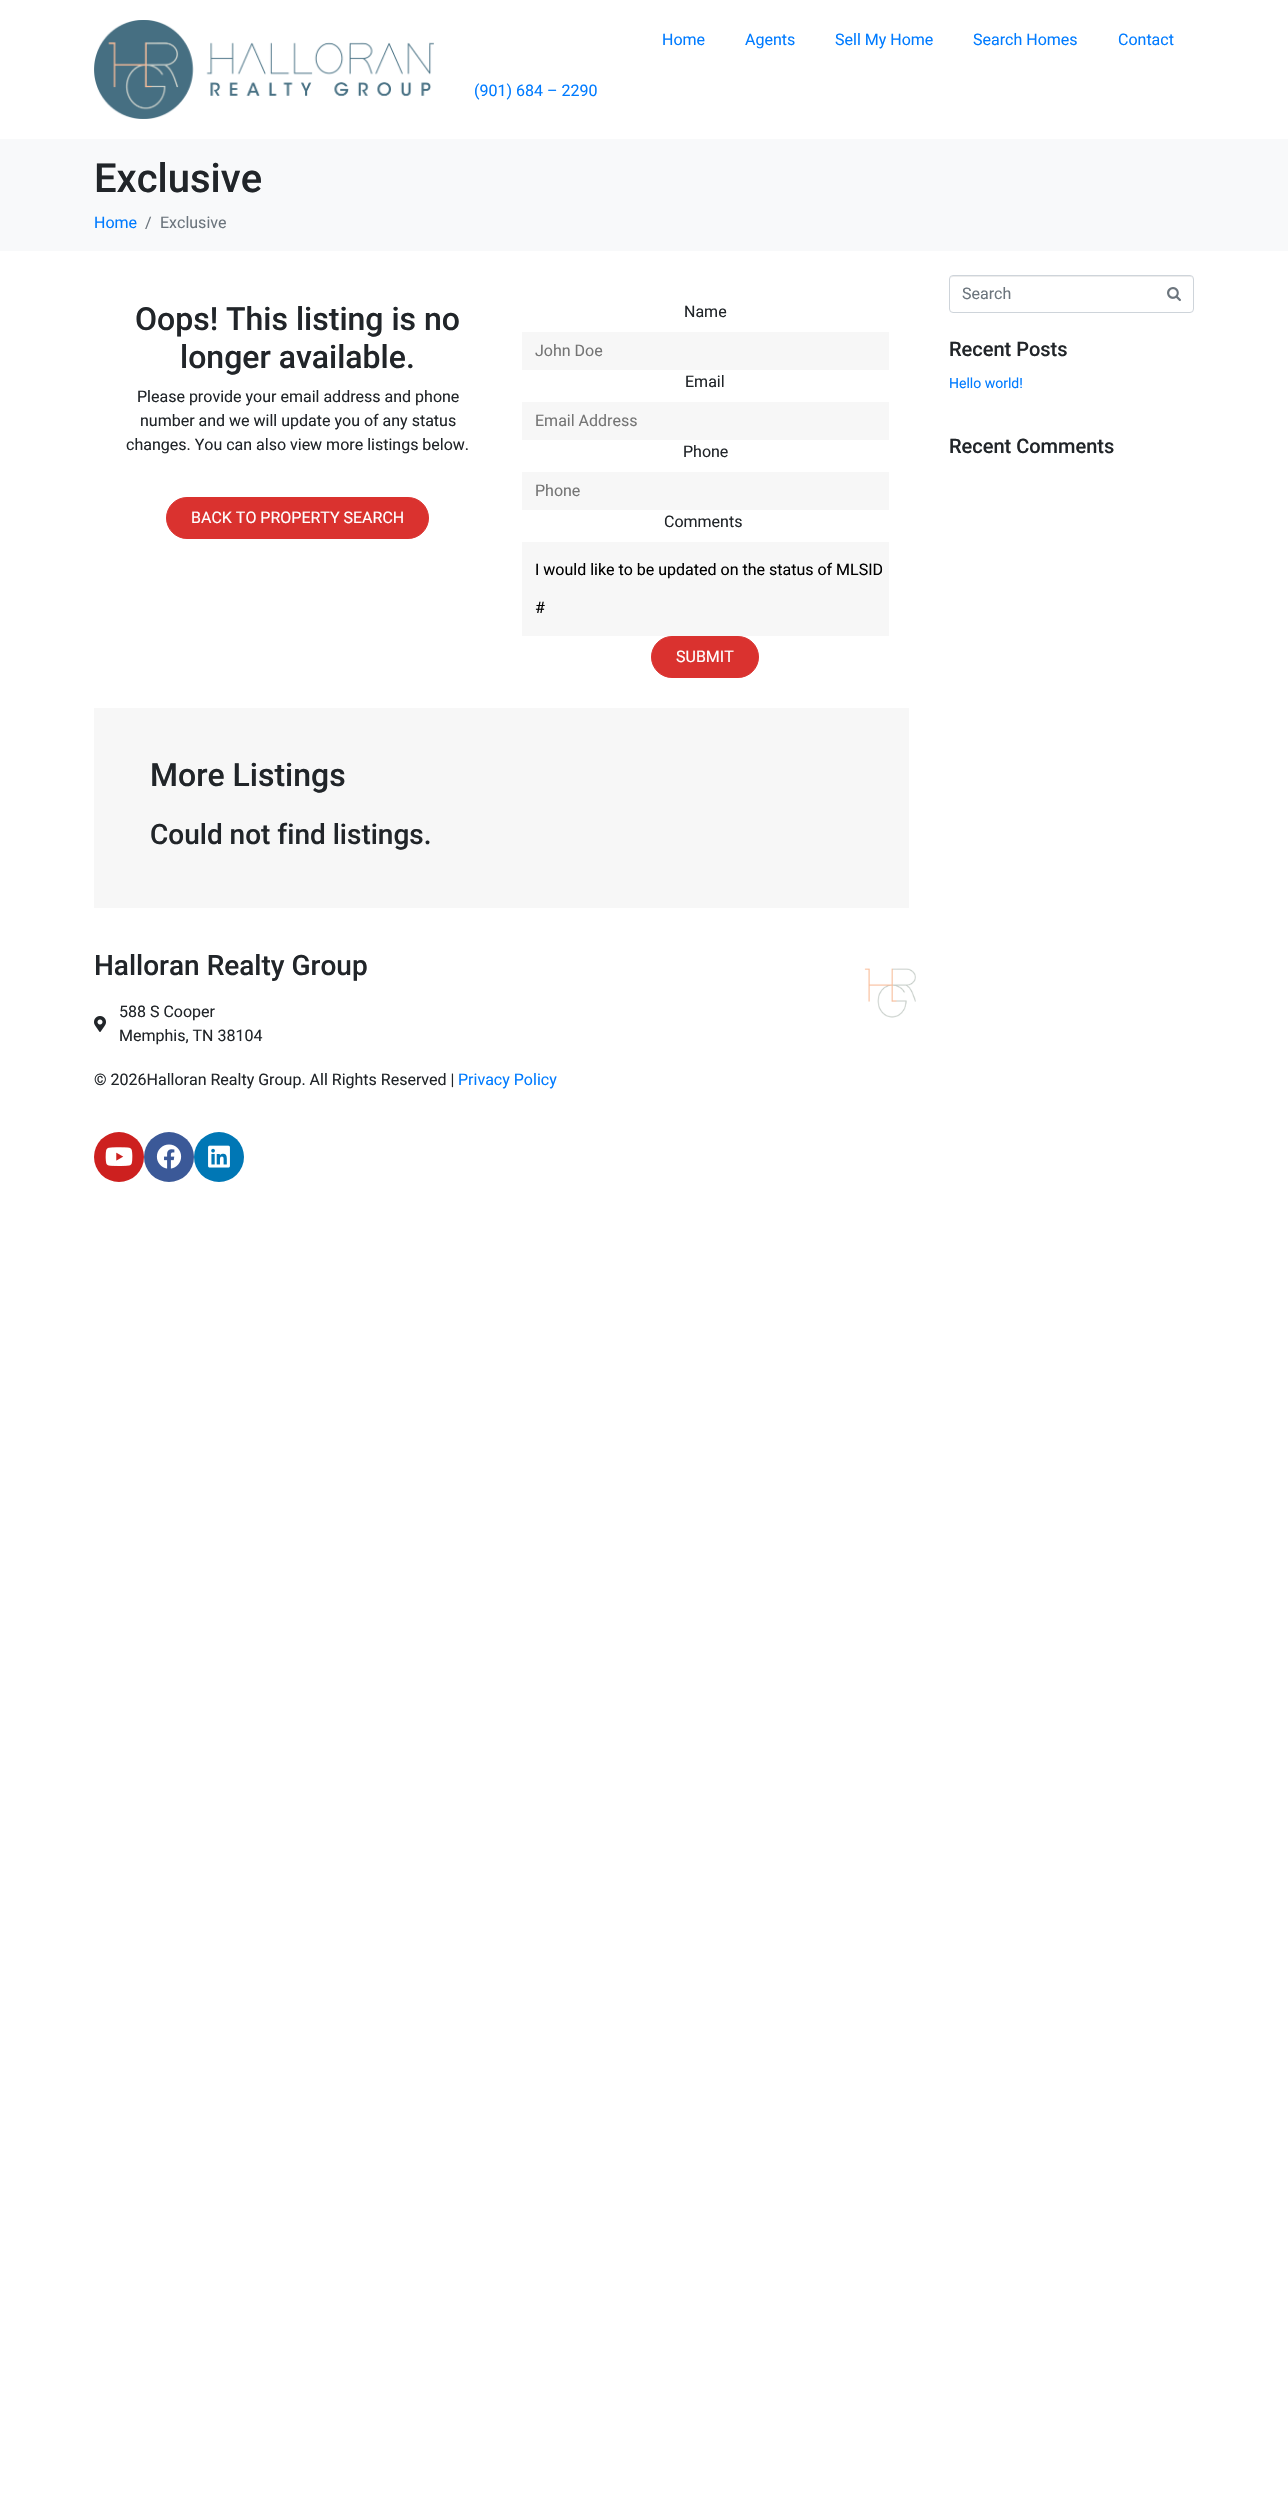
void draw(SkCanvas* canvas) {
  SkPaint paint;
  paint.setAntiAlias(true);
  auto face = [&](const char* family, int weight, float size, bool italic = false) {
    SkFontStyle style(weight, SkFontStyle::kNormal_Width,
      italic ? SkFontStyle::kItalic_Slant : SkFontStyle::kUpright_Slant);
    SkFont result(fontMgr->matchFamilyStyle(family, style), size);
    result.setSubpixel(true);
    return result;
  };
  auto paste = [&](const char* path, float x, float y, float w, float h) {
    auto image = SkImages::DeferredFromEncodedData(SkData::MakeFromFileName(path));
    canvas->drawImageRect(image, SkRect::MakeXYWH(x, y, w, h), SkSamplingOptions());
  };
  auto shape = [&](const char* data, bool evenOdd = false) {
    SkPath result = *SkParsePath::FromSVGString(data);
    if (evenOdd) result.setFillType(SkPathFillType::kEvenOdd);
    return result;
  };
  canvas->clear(0xffffffff);
  paste("img/1.png", 94, 20, 340, 99);
  paint.setColor(0xfff8f9fa);
  canvas->drawRect(SkRect::MakeXYWH(0, 139, 1288, 112), paint);
  paint.setColor(0xffda322f);
  canvas->drawRoundRect(SkRect::MakeXYWH(166.5f, 497.5f, 262, 41), 20.5f, 20.5f, paint);
  paint.setStroke(true);
  paint.setStrokeWidth(1);
  canvas->drawRoundRect(SkRect::MakeXYWH(166.5f, 497.5f, 262, 41), 20.5f, 20.5f, paint);
  paint.setStroke(false);
  {
    const struct { float x, y, w, h; SkColor color; } items[] = {
      {522, 332, 367, 38, 0xfff7f7f7},
      {522, 402, 367, 38, 0xfff7f7f7},
      {522, 472, 367, 38, 0xfff7f7f7},
      {522, 542, 367, 94, 0xfff7f7f7},
    };
    for (auto [x, y, w, h, color] : items) {
      paint.setColor(color);
      canvas->drawRect(SkRect::MakeXYWH(x, y, w, h), paint);
    }
  }
  paint.setColor(0xffda322f);
  canvas->drawRoundRect(SkRect::MakeXYWH(651.5f, 636.5f, 107, 41), 20.5f, 20.5f, paint);
  paint.setStroke(true);
  canvas->drawRoundRect(SkRect::MakeXYWH(651.5f, 636.5f, 107, 41), 20.5f, 20.5f, paint);
  paint.setStroke(false);
  paint.setColor(0xfff7f7f7);
  canvas->drawRect(SkRect::MakeXYWH(94, 708, 815, 200), paint);
  paint.setColor(0xffececec);
  canvas->drawPath(shape("M953 277H1191L1193 278V280C1193 278 1192 276 1190 276H953C951 276 950 278 950 280C950 278 951 277 953 277Z"), paint);
  paint.setStroke(true);
  paint.setColor(0xffced4da);
  canvas->drawRoundRect(SkRect::MakeXYWH(949.5f, 275.5f, 244, 37), 3.5f, 3.5f, paint);
  paste("img/2.png", 1167, 287, 14, 15);
  paste("img/3.png", 94, 1016, 12, 16);
  paint.setStroke(false);
  paint.setColor(0xffcd201f);
  canvas->drawCircle(119, 1157, 25, paint);
  paste("img/4.png", 105, 1147, 28, 19);
  paint.setColor(0xff3b5998);
  canvas->drawCircle(169, 1157, 25, paint);
  paste("img/5.png", 156, 1144, 26, 25);
  paint.setColor(0xff0077b5);
  canvas->drawCircle(219, 1157, 25, paint);
  paste("img/6.png", 208, 1145, 22, 23);
  paste("img/7.png", 864, 968, 52, 50);
  auto f0 = face("Roboto", 400, 16);
  paint.setColor(0xff007bff);
  {
    const struct { const char* s; float x, y; } items[] = {
      {"Home", 662, 45},
      {"Agents", 745, 45},
      {"Sell My Home", 835, 45},
      {"Search Homes", 973, 45},
      {"Contact", 1118, 45},
      {"(901) 684 – 2290", 474, 96},
    };
    for (auto [s, x, y] : items) {
      canvas->drawString(s, x, y, f0, paint);
    }
  }
  auto f1 = face("Roboto", 500, 40);
  paint.setColor(0xff212529);
  canvas->drawString("Exclusive", 94, 192, f1, paint);
  paint.setColor(0xff007bff);
  canvas->drawString("Home", 94, 228, f0, paint);
  paint.setColor(0xff6c757d);
  canvas->drawString("/", 145, 228, f0, paint);
  canvas->drawString("Exclusive", 160, 228, f0, paint);
  auto f2 = face("Roboto", 500, 32);
  paint.setColor(0xff212529);
  canvas->drawString("Oops! This listing is no", 135, 330, f2, paint);
  canvas->drawString("longer available.", 180, 368, f2, paint);
  {
    const struct { const char* s; float x, y; } items[] = {
      {"Please provide your email address and phone", 137, 402},
      {"number and we will update you of any status", 140, 426},
      {"changes. You can also view more listings below.", 126, 450},
    };
    for (auto [s, x, y] : items) {
      canvas->drawString(s, x, y, f0, paint);
    }
  }
  paint.setColor(0xffffffff);
  canvas->drawString("BACK TO PROPERTY SEARCH", 191, 523, f0, paint);
  paint.setColor(0xff212529);
  canvas->drawString("Name", 684, 317, f0, paint);
  paint.setColor(0xff757575);
  canvas->drawString("John Doe", 535, 356, f0, paint);
  paint.setColor(0xff212529);
  canvas->drawString("Email", 685, 387, f0, paint);
  paint.setColor(0xff757575);
  canvas->drawString("Email Address", 535, 426, f0, paint);
  paint.setColor(0xff212529);
  canvas->drawString("Phone", 683, 457, f0, paint);
  paint.setColor(0xff757575);
  canvas->drawString("Phone", 535, 496, f0, paint);
  paint.setColor(0xff212529);
  canvas->drawString("Comments", 664, 527, f0, paint);
  paint.setColor(0xff000000);
  canvas->drawString("I would like to be updated on the status of MLSID", 535, 575, f0, paint);
  canvas->drawString("#", 535, 613, f0, paint);
  paint.setColor(0xffffffff);
  canvas->drawString("SUBMIT", 676, 662, f0, paint);
  paint.setColor(0xff212529);
  canvas->drawString("More Listings", 150, 786, f2, paint);
  auto f3 = face("Roboto", 500, 28);
  canvas->drawString("Could not find listings.", 150, 844, f3, paint);
  paint.setColor(0xff6c757d);
  canvas->drawString("Search", 962, 299, f0, paint);
  auto f4 = face("Roboto", 500, 20);
  paint.setColor(0xff212529);
  canvas->drawString("Recent Posts", 949, 356, f4, paint);
  auto f5 = face("Roboto", 400, 14);
  paint.setColor(0xff007bff);
  canvas->drawString("Hello world!", 949, 388, f5, paint);
  paint.setColor(0xff212529);
  canvas->drawString("Recent Comments", 949, 453, f4, paint);
  canvas->drawString("Halloran Realty Group", 94, 975, f3, paint);
  {
    const struct { const char* s; float x, y; } items[] = {
      {"588 S Cooper", 119, 1017},
      {"Memphis, TN 38104", 119, 1041},
      {"© 2026Halloran Realty Group. All Rights Reserved |", 94, 1085},
    };
    for (auto [s, x, y] : items) {
      canvas->drawString(s, x, y, f0, paint);
    }
  }
  paint.setColor(0xff007bff);
  canvas->drawString("Privacy Policy", 458, 1085, f0, paint);
}
